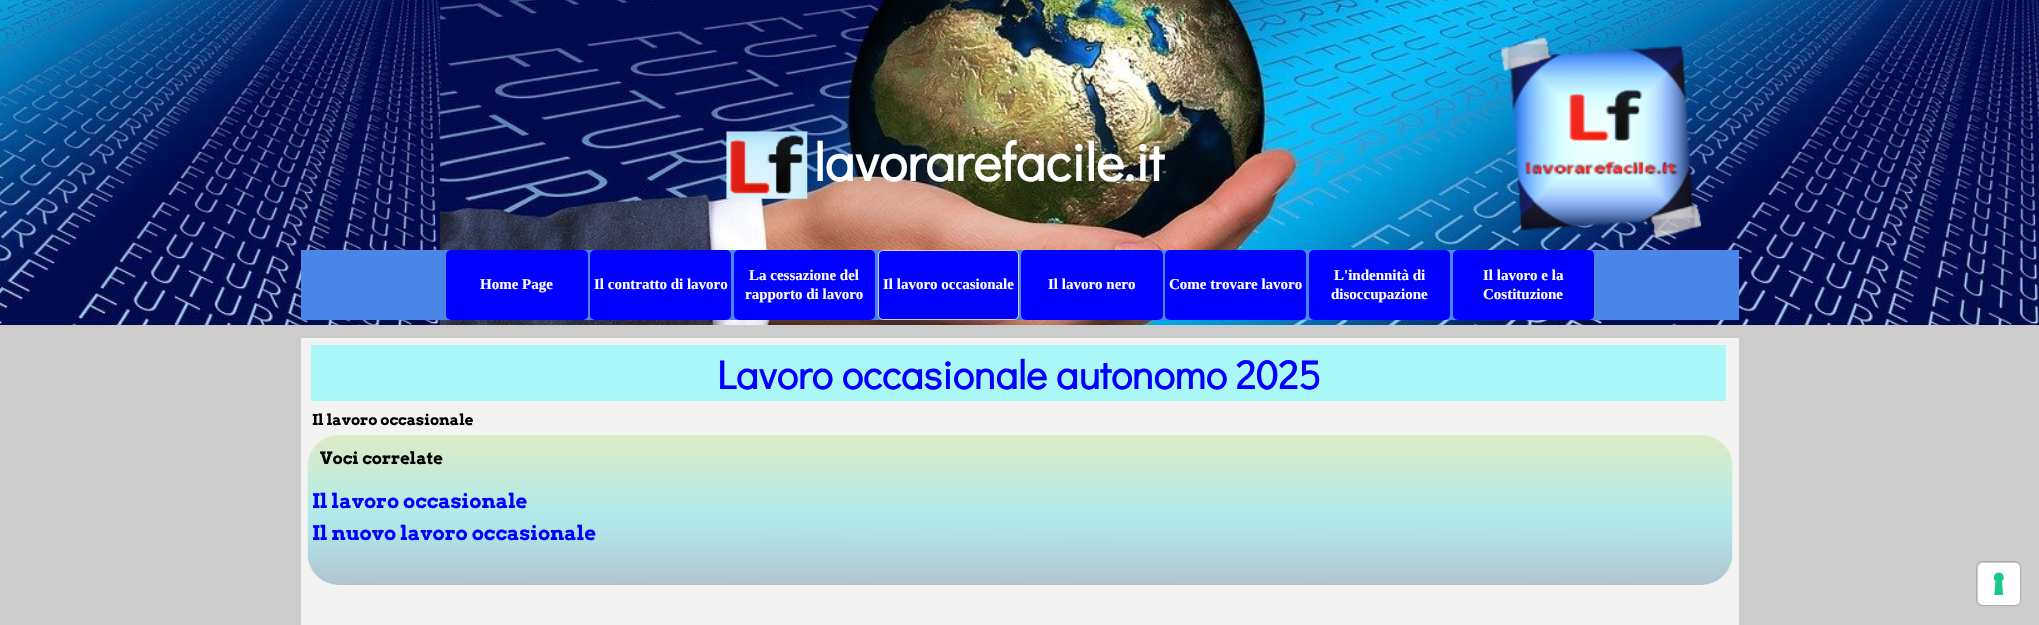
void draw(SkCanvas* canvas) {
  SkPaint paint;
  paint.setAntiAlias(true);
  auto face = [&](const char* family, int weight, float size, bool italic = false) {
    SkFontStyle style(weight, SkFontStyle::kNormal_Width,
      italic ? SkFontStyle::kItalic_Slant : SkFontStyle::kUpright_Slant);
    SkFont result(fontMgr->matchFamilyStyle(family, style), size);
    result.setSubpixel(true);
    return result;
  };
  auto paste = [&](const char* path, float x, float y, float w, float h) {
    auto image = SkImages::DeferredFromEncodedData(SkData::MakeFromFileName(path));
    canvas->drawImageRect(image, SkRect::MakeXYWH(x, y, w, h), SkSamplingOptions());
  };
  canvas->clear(0xffcccccc);
  paste("img/1.png", 0, 0, 2039, 325);
  paste("img/2.png", 726, 131, 82, 68);
  paste("img/3.png", 1501, 37, 201, 201);
  paint.setColor(0xff4a86e8);
  canvas->drawRect(SkRect::MakeXYWH(301, 250, 1438, 70), paint);
  paint.setColor(0xff0000ff);
  canvas->drawRoundRect(SkRect::MakeXYWH(446, 250, 142, 70), 5, 5, paint);
  canvas->drawRoundRect(SkRect::MakeXYWH(590, 250, 141, 70), 5, 5, paint);
  canvas->drawRoundRect(SkRect::MakeXYWH(734, 250, 141, 70), 5, 5, paint);
  canvas->drawRoundRect(SkRect::MakeXYWH(878.5f, 250.5f, 140, 69), 4.5f, 4.5f, paint);
  paint.setStroke(true);
  paint.setStrokeWidth(1);
  paint.setColor(0xffd3d3d3);
  canvas->drawRoundRect(SkRect::MakeXYWH(878.5f, 250.5f, 140, 69), 4.5f, 4.5f, paint);
  paint.setStroke(false);
  paint.setColor(0xff0000ff);
  canvas->drawRoundRect(SkRect::MakeXYWH(1021, 250, 142, 70), 5, 5, paint);
  canvas->drawRoundRect(SkRect::MakeXYWH(1165, 250, 141, 70), 5, 5, paint);
  canvas->drawRoundRect(SkRect::MakeXYWH(1309, 250, 141, 70), 5, 5, paint);
  canvas->drawRoundRect(SkRect::MakeXYWH(1453, 250, 141, 70), 5, 5, paint);
  paint.setColor(0xfff3f3f3);
  canvas->drawRect(SkRect::MakeXYWH(301, 338, 1438, 287), paint);
  paint.setColor(0xffaaf7f7);
  canvas->drawRect(SkRect::MakeXYWH(311, 345, 1415, 56), paint);
  paste("img/4.png", 307, 435, 1426, 150);
  paint.setStroke(true);
  paint.setColor(0xffadadad);
  canvas->drawRoundRect(SkRect::MakeXYWH(1976.5f, 561.5f, 44, 44), 5.5f, 5.5f, paint);
  paint.setStroke(false);
  paint.setColor(0xffffffff);
  canvas->drawRoundRect(SkRect::MakeXYWH(1978, 563, 42, 42), 5, 5, paint);
  paste("img/5.png", 1993, 572, 11, 23);
  auto f0 = face("Didact Gothic", 700, 53.25f);
  canvas->drawString("lavorarefacile.it", 814, 181, f0, paint);
  auto f1 = face("Liberation Serif", 700, 15);
  {
    const struct { const char* s; float x, y; } items[] = {
      {"Home Page", 480, 289},
      {"Il contratto di lavoro", 594, 289},
      {"La cessazione del", 749, 280},
      {"rapporto di lavoro", 745, 299},
      {"Il lavoro occasionale", 883, 289},
      {"Il lavoro nero", 1048, 289},
      {"Come trovare lavoro", 1169, 289},
      {"L'indennità di", 1334, 280},
      {"disoccupazione", 1331, 299},
      {"Il lavoro e la", 1483, 280},
      {"Costituzione", 1483, 299},
    };
    for (auto [s, x, y] : items) {
      canvas->drawString(s, x, y, f1, paint);
    }
  }
  auto f2 = face("Didact Gothic", 700, 40);
  paint.setColor(0xff0000ff);
  canvas->drawString("Lavoro occasionale autonomo 2025", 717, 389, f2, paint);
  auto f3 = face("Arvo", 700, 15);
  paint.setColor(0xff000000);
  canvas->drawString("Il lavoro occasionale", 312, 425, f3, paint);
  auto f4 = face("Arvo", 700, 16.75f);
  canvas->drawString("Voci correlate", 320, 464, f4, paint);
  auto f5 = face("Arvo", 700, 20);
  paint.setColor(0xff0000ff);
  canvas->drawString("Il lavoro occasionale", 312, 508, f5, paint);
  canvas->drawString("Il nuovo lavoro occasionale", 312, 540, f5, paint);
}
